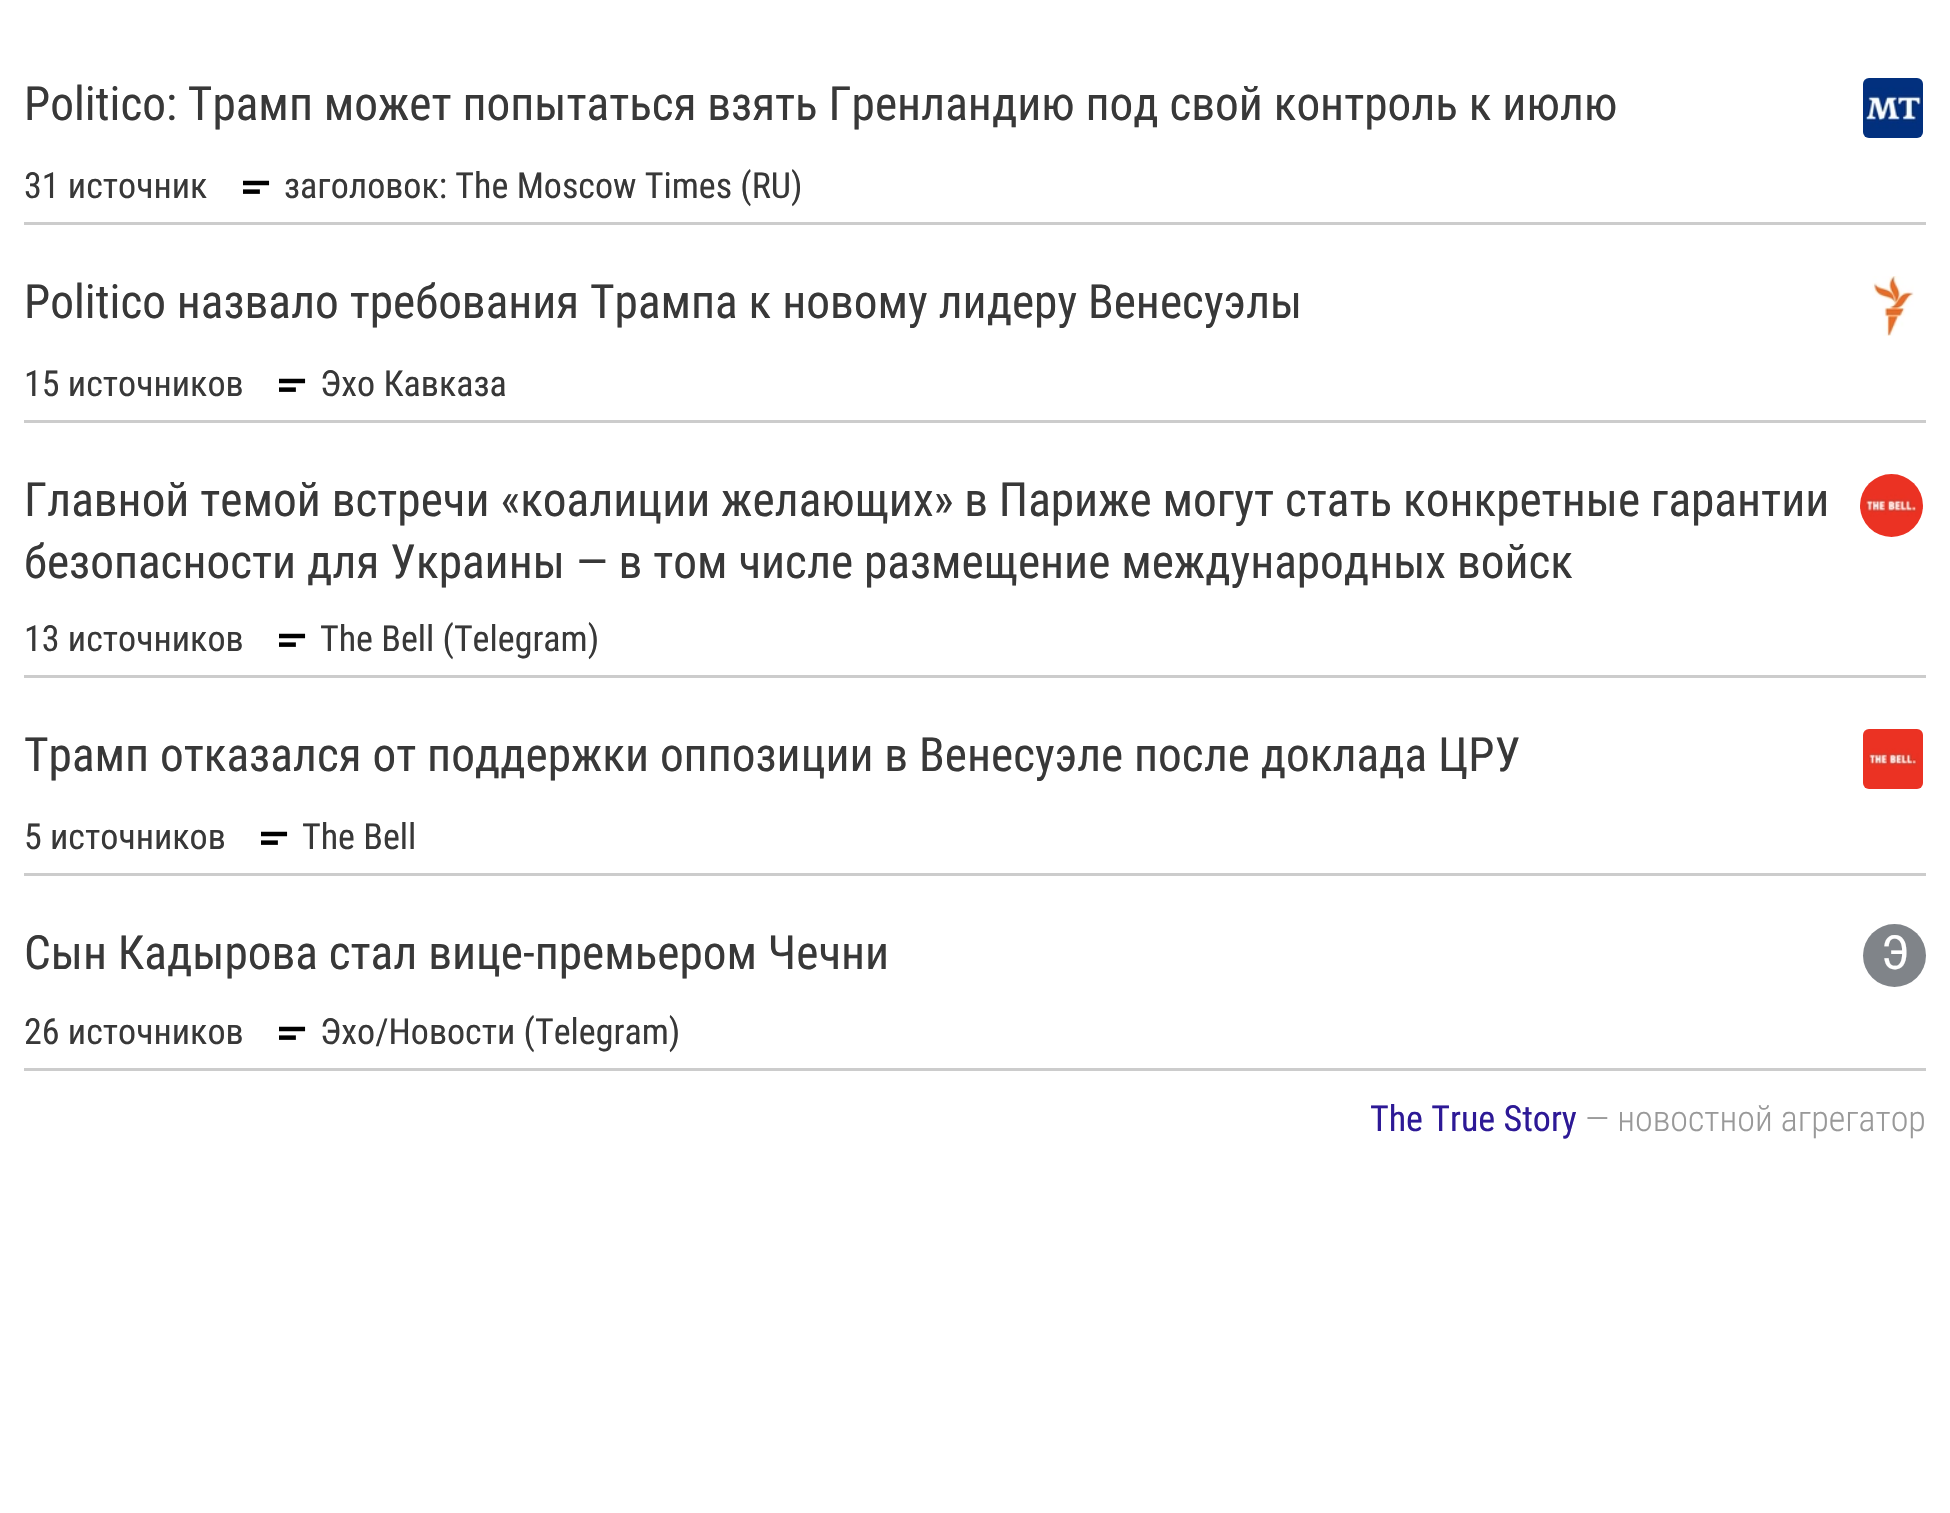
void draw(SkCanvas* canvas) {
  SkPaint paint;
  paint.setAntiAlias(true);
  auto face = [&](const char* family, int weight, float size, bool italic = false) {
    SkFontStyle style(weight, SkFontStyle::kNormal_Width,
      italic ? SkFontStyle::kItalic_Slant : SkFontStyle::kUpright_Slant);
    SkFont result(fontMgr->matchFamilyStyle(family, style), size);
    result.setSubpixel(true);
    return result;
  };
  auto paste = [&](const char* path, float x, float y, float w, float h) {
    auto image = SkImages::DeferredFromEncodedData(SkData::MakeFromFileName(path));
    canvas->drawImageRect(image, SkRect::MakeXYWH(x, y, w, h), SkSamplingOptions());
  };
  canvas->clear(0xffffffff);
  paint.setColor(0xffcccccc);
  canvas->drawRect(SkRect::MakeXYWH(24, 1068, 1902, 3), paint);
  paste("img/1.png", 1863, 78, 60, 60);
  paste("img/2.png", 243, 180, 27, 14);
  canvas->drawRect(SkRect::MakeXYWH(24, 222, 1902, 3), paint);
  paste("img/3.png", 1872, 276, 42, 60);
  paste("img/2.png", 279, 378, 27, 14);
  canvas->drawRect(SkRect::MakeXYWH(24, 420, 1902, 3), paint);
  paste("img/4.png", 1860, 474, 63, 63);
  paste("img/2.png", 279, 633, 27, 14);
  canvas->drawRect(SkRect::MakeXYWH(24, 675, 1902, 3), paint);
  paste("img/5.png", 1863, 729, 60, 60);
  paste("img/2.png", 261, 831, 27, 14);
  canvas->drawRect(SkRect::MakeXYWH(24, 873, 1902, 3), paint);
  paint.setColor(0xff808489);
  canvas->drawCircle(1894.5f, 955.5f, 31.5f, paint);
  paste("img/2.png", 279, 1026, 27, 14);
  auto f0 = face("Roboto Condensed", 400, 47.25f);
  paint.setColor(0xff383838);
  canvas->drawString("Politico: Трамп может попытаться взять Гренландию под свой контроль к июлю", 24, 120, f0, paint);
  auto f1 = face("Roboto Condensed", 400, 36);
  canvas->drawString("31 источник", 24, 198, f1, paint);
  canvas->drawString("заголовок: The Moscow Times (RU)", 284, 198, f1, paint);
  canvas->drawString("Politico назвало требования Трампа к новому лидеру Венесуэлы", 24, 318, f0, paint);
  canvas->drawString("15 источников", 24, 396, f1, paint);
  canvas->drawString("Эхо Кавказа", 320, 396, f1, paint);
  canvas->drawString("Главной темой встречи «коалиции желающих» в Париже могут стать конкретные гарантии", 24, 516, f0, paint);
  canvas->drawString("безопасности для Украины — в том числе размещение международных войск", 24, 578, f0, paint);
  canvas->drawString("13 источников", 24, 651, f1, paint);
  canvas->drawString("The Bell (Telegram)", 320, 651, f1, paint);
  canvas->drawString("Трамп отказался от поддержки оппозиции в Венесуэле после доклада ЦРУ", 24, 771, f0, paint);
  canvas->drawString("5 источников", 24, 849, f1, paint);
  canvas->drawString("The Bell", 302, 849, f1, paint);
  canvas->drawString("Сын Кадырова стал вице-премьером Чечни", 24, 969, f0, paint);
  paint.setColor(0xffffffff);
  canvas->drawString("Э", 1881, 969, f0, paint);
  paint.setColor(0xff383838);
  canvas->drawString("26 источников", 24, 1044, f1, paint);
  canvas->drawString("Эхо/Новости (Telegram)", 320, 1044, f1, paint);
  paint.setColor(0xff2d1996);
  canvas->drawString("The True Story", 1370, 1131, f1, paint);
  auto f2 = face("Roboto Condensed", 300, 36);
  paint.setColor(0xff999999);
  canvas->drawString("— новостной агрегатор", 1585, 1131, f2, paint);
}
